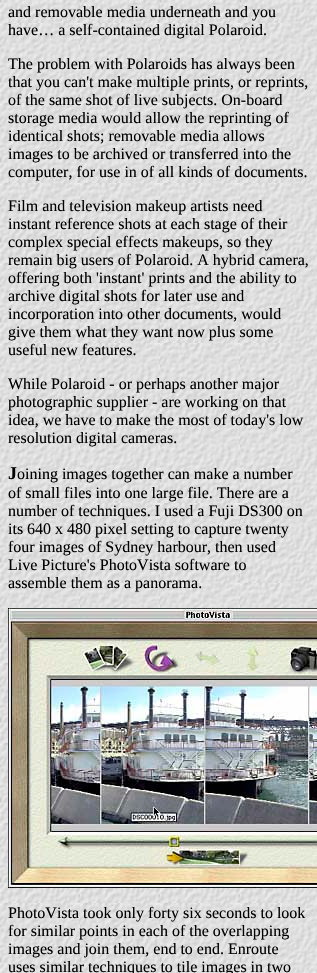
void draw(SkCanvas* canvas) {
  SkPaint paint;
  paint.setAntiAlias(true);
  auto face = [&](const char* family, int weight, float size, bool italic = false) {
    SkFontStyle style(weight, SkFontStyle::kNormal_Width,
      italic ? SkFontStyle::kItalic_Slant : SkFontStyle::kUpright_Slant);
    SkFont result(fontMgr->matchFamilyStyle(family, style), size);
    result.setSubpixel(true);
    return result;
  };
  auto paste = [&](const char* path, float x, float y, float w, float h) {
    auto image = SkImages::DeferredFromEncodedData(SkData::MakeFromFileName(path));
    canvas->drawImageRect(image, SkRect::MakeXYWH(x, y, w, h), SkSamplingOptions());
  };
  canvas->clear(0xffffffff);
  paste("img/1.png", 0, 0, 317, 973);
  paste("img/2.png", 8, 608, 309, 280);
  auto f0 = face("Liberation Serif", 400, 16);
  paint.setColor(0xff000000);
  {
    const struct { const char* s; float x, y; } items[] = {
      {"and removable media underneath and you", 8, 17},
      {"have… a self-contained digital Polaroid.", 8, 35},
      {"The problem with Polaroids has always been", 8, 69},
      {"that you can't make multiple prints, or reprints,", 8, 87},
      {"of the same shot of live subjects. On-board", 8, 105},
      {"storage media would allow the reprinting of", 8, 123},
      {"identical shots; removable media allows", 8, 141},
      {"images to be archived or transferred into the", 8, 159},
      {"computer, for use in of all kinds of documents.", 8, 177},
      {"Film and television makeup artists need", 8, 211},
      {"instant reference shots at each stage of their", 8, 229},
      {"complex special effects makeups, so they", 8, 247},
      {"remain big users of Polaroid. A hybrid camera,", 8, 265},
      {"offering both 'instant' prints and the ability to", 8, 283},
      {"archive digital shots for later use and", 8, 301},
      {"incorporation into other documents, would", 8, 319},
      {"give them what they want now plus some", 8, 337},
      {"useful new features.", 8, 355},
      {"While Polaroid - or perhaps another major", 8, 389},
      {"photographic supplier - are working on that", 8, 407},
      {"idea, we have to make the most of today's low", 8, 425},
      {"resolution digital cameras.", 8, 443},
    };
    for (auto [s, x, y] : items) {
      canvas->drawString(s, x, y, f0, paint);
    }
  }
  auto f1 = face("Liberation Serif", 700, 18);
  canvas->drawString("J", 8, 479, f1, paint);
  {
    const struct { const char* s; float x, y; } items[] = {
      {"oining images together can make a number", 17, 479},
      {"of small files into one large file. There are a", 8, 498},
      {"number of techniques. I used a Fuji DS300 on", 8, 516},
      {"its 640 x 480 pixel setting to capture twenty", 8, 534},
      {"four images of Sydney harbour, then used", 8, 552},
      {"Live Picture's PhotoVista software to", 8, 570},
      {"assemble them as a panorama.", 8, 588},
      {"PhotoVista took only forty six seconds to look", 8, 918},
      {"for similar points in each of the overlapping", 8, 936},
      {"images and join them, end to end. Enroute", 8, 954},
      {"uses similar techniques to tile images in two", 8, 972},
    };
    for (auto [s, x, y] : items) {
      canvas->drawString(s, x, y, f0, paint);
    }
  }
}
